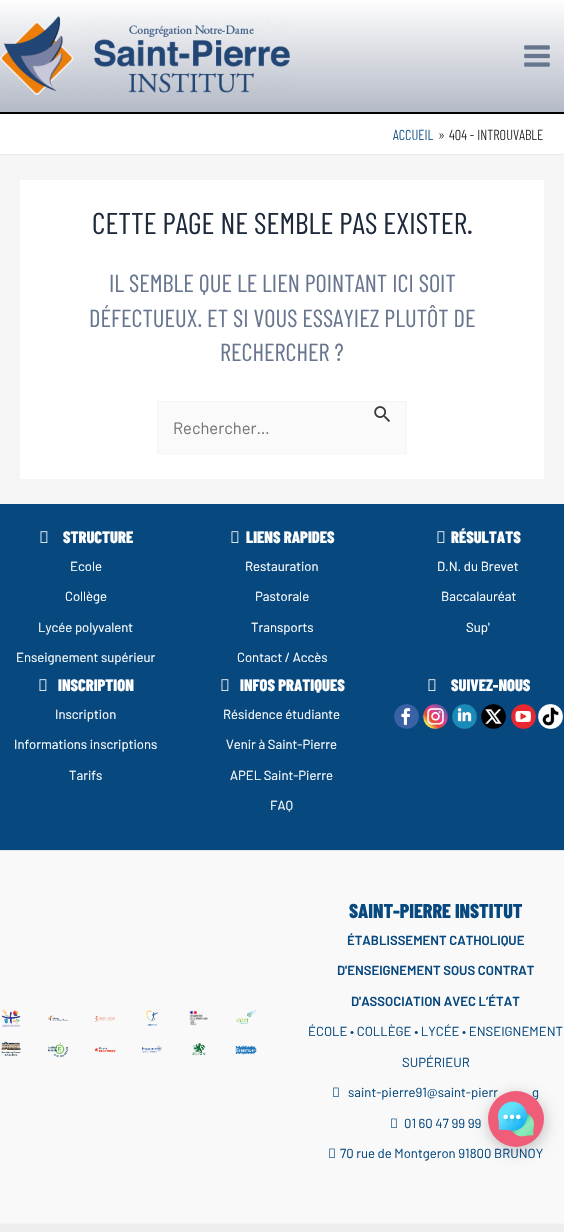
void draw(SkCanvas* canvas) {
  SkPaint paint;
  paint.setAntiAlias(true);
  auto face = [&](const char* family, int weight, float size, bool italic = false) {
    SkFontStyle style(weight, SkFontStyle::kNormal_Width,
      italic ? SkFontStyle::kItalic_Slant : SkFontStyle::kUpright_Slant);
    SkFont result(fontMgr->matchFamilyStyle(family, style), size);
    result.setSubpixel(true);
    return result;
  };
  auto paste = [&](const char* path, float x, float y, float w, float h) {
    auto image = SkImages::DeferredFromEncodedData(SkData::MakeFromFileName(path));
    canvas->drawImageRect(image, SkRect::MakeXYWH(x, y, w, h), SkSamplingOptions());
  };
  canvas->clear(0xfff5f5f5);
  {
    const SkColor colors[] = {0xffb4bac6, 0xfffefefe};
    const float stops[] = {0.01f, 1};
    const SkPoint ends[] = {{282, 112}, {282, 0}};
    paint.setShader(SkGradientShader::MakeLinear(ends, colors, stops, 2, SkTileMode::kClamp));
    paint.setAlpha(255);
  }
  canvas->drawRect(SkRect::MakeXYWH(0, 0, 564, 112), paint);
  paint.setShader(nullptr);
  paint.setColor(0xff000000);
  canvas->drawRect(SkRect::MakeXYWH(0, 112, 564, 2), paint);
  paste("img/1.png", 0, 16, 290, 79);
  paste("img/2.png", 524, 45, 26, 22);
  {
    const struct { float x, y, w, h; SkColor color; } items[] = {
      {0, 114, 564, 40, 0xffffffff},
      {0, 154, 564, 1, 0xffeaeaea},
      {20, 180, 524, 299, 0xffffffff},
    };
    for (auto [x, y, w, h, color] : items) {
      paint.setColor(color);
      canvas->drawRect(SkRect::MakeXYWH(x, y, w, h), paint);
    }
  }
  paint.setColor(0xfffafafa);
  canvas->drawRoundRect(SkRect::MakeXYWH(157.5f, 401.5f, 249, 52), 1.5f, 1.5f, paint);
  paint.setStroke(true);
  paint.setStrokeWidth(1);
  paint.setColor(0xfff2f5f7);
  canvas->drawRoundRect(SkRect::MakeXYWH(157.5f, 401.5f, 249, 52), 1.5f, 1.5f, paint);
  paste("img/3.png", 374, 406, 16, 16);
  paint.setStroke(false);
  paint.setColor(0xff07497f);
  canvas->drawRect(SkRect::MakeXYWH(0, 504, 564, 346), paint);
  paste("img/4.png", 40, 531, 8, 12);
  paste("img/4.png", 231, 531, 8, 12);
  paste("img/4.png", 437, 531, 8, 12);
  paste("img/4.png", 39, 679, 8, 12);
  paste("img/4.png", 221, 679, 8, 12);
  paste("img/4.png", 428, 679, 8, 12);
  paste("img/5.png", 394, 704, 25, 25);
  paste("img/6.png", 423, 704, 25, 25);
  paste("img/7.png", 452, 704, 25, 25);
  paste("img/8.png", 481, 704, 25, 25);
  paste("img/9.png", 511, 704, 25, 25);
  paste("img/10.png", 538, 704, 25, 25);
  paint.setColor(0xfff9f9f9);
  canvas->drawRect(SkRect::MakeXYWH(0, 851, 564, 372), paint);
  paint.setColor(0xffe6e6e6);
  canvas->drawRect(SkRect::MakeXYWH(0, 850, 564, 1), paint);
  paste("img/11.png", 1, 1009, 20, 18);
  paste("img/12.png", 48, 1015, 20, 6);
  paste("img/13.png", 94, 1015, 22, 7);
  paste("img/14.png", 146, 1010, 12, 16);
  paste("img/15.png", 189, 1010, 19, 16);
  paste("img/16.png", 236, 1010, 21, 14);
  paste("img/17.png", 1, 1041, 20, 15);
  paste("img/18.png", 48, 1042, 20, 16);
  paste("img/19.png", 94, 1047, 22, 5);
  paste("img/20.png", 142, 1045, 20, 8);
  paste("img/21.png", 192, 1043, 14, 13);
  paste("img/22.png", 235, 1045, 22, 10);
  paste("img/23.png", 333, 1087, 6, 10);
  paste("img/23.png", 391, 1118, 6, 10);
  paste("img/23.png", 329, 1148, 6, 10);
  paint.setColor(0xffeeeeee);
  canvas->drawRect(SkRect::MakeXYWH(0, 1224, 564, 8), paint);
  paint.setColor(0xfff2f5f7);
  canvas->drawRect(SkRect::MakeXYWH(0, 1223, 564, 1), paint);
  paint.setColor(0x3d000000);
  paint.setMaskFilter(SkMaskFilter::MakeBlur(kNormal_SkBlurStyle, 7.5f));
  canvas->drawRoundRect(SkRect::MakeXYWH(489, 1095, 56, 56), 28, 28, paint);
  paint.setMaskFilter(nullptr);
  auto f0 = face("Barlow Condensed", 300, 14.5f);
  paint.setColor(0xff07497f);
  canvas->drawString("ACCUEIL", 393, 140, f0, paint);
  paint.setColor(0xff1f1f1f);
  canvas->drawString("»", 438, 140, f0, paint);
  canvas->drawString("404 - INTROUVABLE", 449, 140, f0, paint);
  auto f1 = face("Barlow Condensed", 400, 30);
  paint.setColor(0xff1e293b);
  canvas->drawString("CETTE PAGE NE SEMBLE PAS EXISTER.", 92, 234, f1, paint);
  auto f2 = face("Barlow Condensed", 400, 24.6f);
  paint.setColor(0xff67768e);
  {
    const struct { const char* s; float x, y; } items[] = {
      {"IL SEMBLE QUE LE LIEN POINTANT ICI SOIT", 109, 292},
      {"DÉFECTUEUX. ET SI VOUS ESSAYIEZ PLUTÔT DE", 89, 327},
      {"RECHERCHER ?", 220, 361},
    };
    for (auto [s, x, y] : items) {
      canvas->drawString(s, x, y, f2, paint);
    }
  }
  auto f3 = face("Barlow", 400, 16.5f);
  paint.setColor(0xff757575);
  canvas->drawString("Rechercher…", 173, 434, f3, paint);
  auto f4 = face("Barlow Condensed", 800, 16.5f);
  paint.setColor(0xffffffff);
  canvas->drawString("STRUCTURE", 63, 543, f4, paint);
  auto f5 = face("Barlow", 400, 13.1f);
  {
    const struct { const char* s; float x, y; } items[] = {
      {"Ecole", 70, 571},
      {"Collège", 65, 601},
      {"Lycée polyvalent", 38, 632},
      {"Enseignement supérieur", 16, 662},
    };
    for (auto [s, x, y] : items) {
      canvas->drawString(s, x, y, f5, paint);
    }
  }
  canvas->drawString("LIENS RAPIDES", 246, 543, f4, paint);
  {
    const struct { const char* s; float x, y; } items[] = {
      {"Restauration", 245, 571},
      {"Pastorale", 255, 601},
      {"Transports", 251, 632},
      {"Contact / Accès", 237, 662},
    };
    for (auto [s, x, y] : items) {
      canvas->drawString(s, x, y, f5, paint);
    }
  }
  canvas->drawString("RÉSULTATS", 451, 543, f4, paint);
  {
    const struct { const char* s; float x, y; } items[] = {
      {"D.N. du Brevet", 437, 571},
      {"Baccalauréat", 441, 601},
      {"Sup'", 466, 632},
    };
    for (auto [s, x, y] : items) {
      canvas->drawString(s, x, y, f5, paint);
    }
  }
  canvas->drawString("INSCRIPTION", 58, 691, f4, paint);
  {
    const struct { const char* s; float x, y; } items[] = {
      {"Inscription", 55, 719},
      {"Informations inscriptions", 14, 749},
      {"Tarifs", 69, 780},
    };
    for (auto [s, x, y] : items) {
      canvas->drawString(s, x, y, f5, paint);
    }
  }
  canvas->drawString("INFOS PRATIQUES", 240, 691, f4, paint);
  {
    const struct { const char* s; float x, y; } items[] = {
      {"Résidence étudiante", 223, 719},
      {"Venir à Saint-Pierre", 226, 749},
      {"APEL Saint-Pierre", 230, 780},
      {"FAQ", 270, 810},
    };
    for (auto [s, x, y] : items) {
      canvas->drawString(s, x, y, f5, paint);
    }
  }
  canvas->drawString("SUIVEZ-NOUS", 451, 691, f4, paint);
  auto f6 = face("Barlow Condensed", 800, 20);
  paint.setColor(0xff07497f);
  canvas->drawString("SAINT-PIERRE INSTITUT", 349, 918, f6, paint);
  auto f7 = face("Barlow", 600, 13.1f);
  {
    const struct { const char* s; float x, y; } items[] = {
      {"ÉTABLISSEMENT CATHOLIQUE", 347, 945},
      {"D'ENSEIGNEMENT SOUS CONTRAT", 337, 975},
      {"D'ASSOCIATION AVEC L’ÉTAT", 351, 1006},
    };
    for (auto [s, x, y] : items) {
      canvas->drawString(s, x, y, f7, paint);
    }
  }
  {
    const struct { const char* s; float x, y; } items[] = {
      {"ÉCOLE • COLLÈGE • LYCÉE • ENSEIGNEMENT", 308, 1036},
      {"SUPÉRIEUR", 402, 1067},
      {"saint-pierre91@saint-pierr", 348, 1097},
      {"g", 532, 1097},
      {"01 60 47 99 99", 404, 1128},
      {"70 rue de Montgeron 91800 BRUNOY", 340, 1158},
    };
    for (auto [s, x, y] : items) {
      canvas->drawString(s, x, y, f5, paint);
    }
  }
  paint.setColor(0xffef5d79);
  canvas->drawCircle(516, 1119, 28, paint);
  paste("img/24.png", 498, 1101, 36, 36);
}
